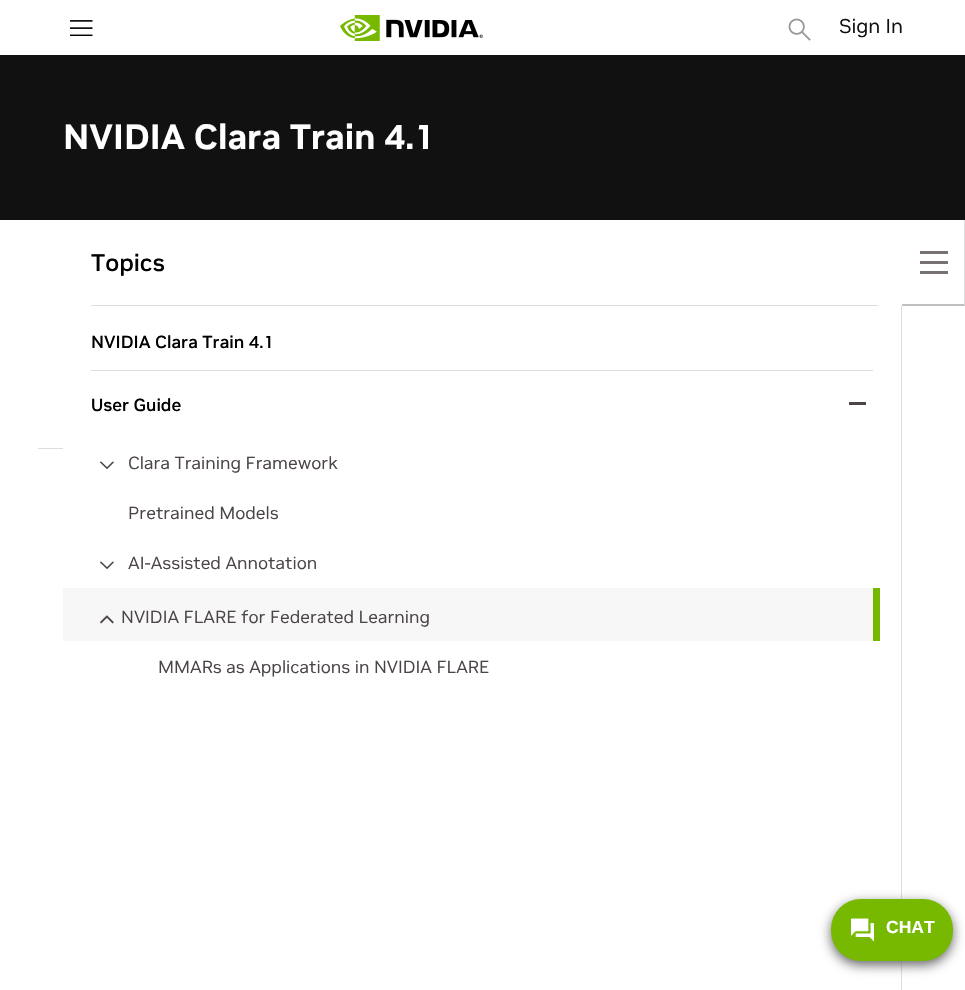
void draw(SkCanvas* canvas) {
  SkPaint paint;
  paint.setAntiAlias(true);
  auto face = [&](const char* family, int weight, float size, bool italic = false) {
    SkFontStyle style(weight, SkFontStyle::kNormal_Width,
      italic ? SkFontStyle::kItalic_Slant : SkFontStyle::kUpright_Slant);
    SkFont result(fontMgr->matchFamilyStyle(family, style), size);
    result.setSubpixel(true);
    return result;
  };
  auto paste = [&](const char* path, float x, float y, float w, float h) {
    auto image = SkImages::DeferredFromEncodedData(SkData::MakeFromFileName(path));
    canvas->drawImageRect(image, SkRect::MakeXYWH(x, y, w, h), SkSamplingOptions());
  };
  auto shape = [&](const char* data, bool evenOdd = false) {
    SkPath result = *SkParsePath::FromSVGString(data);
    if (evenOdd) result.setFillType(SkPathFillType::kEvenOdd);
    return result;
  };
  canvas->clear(0xffffffff);
  paste("img/1.png", 70, 20, 23, 16);
  paste("img/2.png", 340, 15, 143, 26);
  paste("img/3.png", 788, 18, 23, 23);
  {
    const struct { float x, y, w, h; SkColor color; } items[] = {
      {0, 55, 965, 165, 0xff111111},
      {38, 448, 25, 1, 0xffdddddd},
      {91, 305, 787, 1, 0xffdddddd},
    };
    for (auto [x, y, w, h, color] : items) {
      paint.setColor(color);
      canvas->drawRect(SkRect::MakeXYWH(x, y, w, h), paint);
    }
  }
  canvas->drawPath(shape("M965 220V306L964 304V220Z"), paint);
  paint.setColor(0xffc0c0c0);
  canvas->drawPath(shape("M965 306H902V304H964Z"), paint);
  {
    const struct { float x, y, w, h; SkColor color; } items[] = {
      {920, 251, 28, 3, 0xff787171},
      {920, 261, 28, 3, 0xff787171},
      {920, 271, 28, 3, 0xff787171},
      {901, 306, 1, 684, 0xffdddddd},
      {91, 370, 782, 1, 0xffdddddd},
      {849, 402, 17, 3, 0xff4b4545},
    };
    for (auto [x, y, w, h, color] : items) {
      paint.setColor(color);
      canvas->drawRect(SkRect::MakeXYWH(x, y, w, h), paint);
    }
  }
  paste("img/4.png", 100, 461, 14, 9);
  paste("img/4.png", 100, 561, 14, 9);
  paint.setColor(0xfff7f7f7);
  canvas->drawRect(SkRect::MakeXYWH(63, 588, 810, 53), paint);
  paste("img/5.png", 100, 615, 14, 9);
  paint.setColor(0xff74b900);
  canvas->drawRect(SkRect::MakeXYWH(873, 588, 7, 53), paint);
  paint.setColor(0xff666666);
  paint.setMaskFilter(SkMaskFilter::MakeBlur(kNormal_SkBlurStyle, 6));
  canvas->drawRoundRect(SkRect::MakeXYWH(831, 903, 122, 62), 30, 30, paint);
  paint.setMaskFilter(nullptr);
  paint.setColor(0xff76b900);
  canvas->drawRoundRect(SkRect::MakeXYWH(831, 899, 122, 62), 30, 30, paint);
  paste("img/6.png", 851, 918, 23, 24);
  auto f0 = face("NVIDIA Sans", 400, 20);
  paint.setColor(0xff111111);
  canvas->drawString("Sign In", 839, 33, f0, paint);
  auto f1 = face("NVIDIA Sans", 700, 35);
  paint.setColor(0xffffffff);
  canvas->drawString("NVIDIA Clara Train 4.1", 63, 149, f1, paint);
  auto f2 = face("NVIDIA Sans", 500, 24);
  paint.setColor(0xff000000);
  canvas->drawString("Topics", 91, 271, f2, paint);
  auto f3 = face("NVIDIA Sans", 500, 17.5f);
  canvas->drawString("NVIDIA Clara Train 4.1", 91, 348, f3, paint);
  canvas->drawString("User Guide", 91, 411, f3, paint);
  auto f4 = face("NVIDIA Sans", 400, 17.5f);
  paint.setColor(0xff4b4545);
  {
    const struct { const char* s; float x, y; } items[] = {
      {"Clara Training Framework", 128, 469},
      {"Pretrained Models", 128, 519},
      {"AI-Assisted Annotation", 128, 569},
      {"NVIDIA FLARE for Federated Learning", 121, 623},
      {"MMARs as Applications in NVIDIA FLARE", 158, 673},
    };
    for (auto [s, x, y] : items) {
      canvas->drawString(s, x, y, f4, paint);
    }
  }
  auto f5 = face("Liberation Sans", 700, 17.5f);
  paint.setColor(0xffffffff);
  canvas->drawString("CHAT", 886, 933, f5, paint);
}
